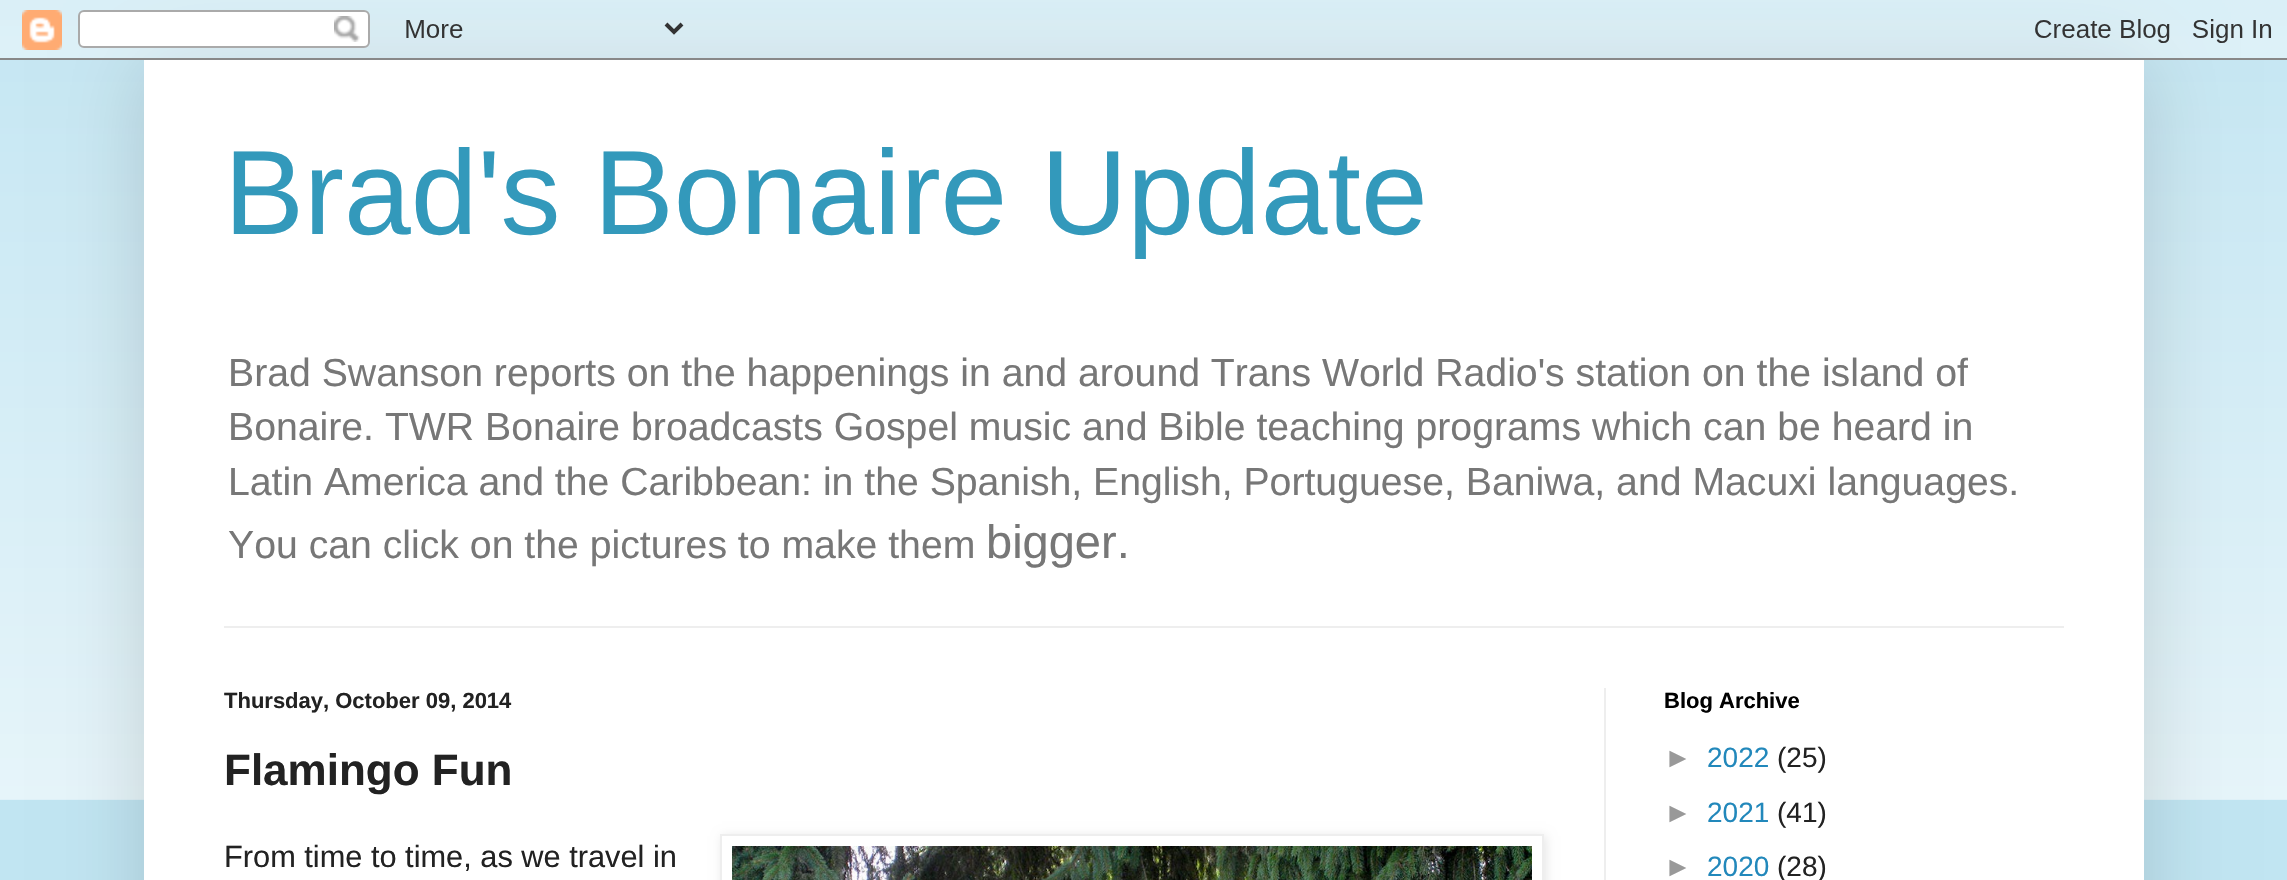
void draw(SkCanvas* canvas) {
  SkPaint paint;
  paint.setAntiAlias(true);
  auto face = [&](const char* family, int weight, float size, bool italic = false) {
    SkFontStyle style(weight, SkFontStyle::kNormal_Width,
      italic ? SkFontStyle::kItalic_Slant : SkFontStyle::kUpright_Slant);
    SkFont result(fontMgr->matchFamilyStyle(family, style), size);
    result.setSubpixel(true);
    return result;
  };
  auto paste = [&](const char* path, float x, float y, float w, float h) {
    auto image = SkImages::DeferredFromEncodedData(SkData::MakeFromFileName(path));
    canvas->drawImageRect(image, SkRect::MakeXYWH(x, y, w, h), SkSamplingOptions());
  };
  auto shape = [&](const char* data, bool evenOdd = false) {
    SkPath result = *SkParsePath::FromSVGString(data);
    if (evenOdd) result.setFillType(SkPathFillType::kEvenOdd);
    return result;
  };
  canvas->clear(0xffc1e5f2);
  paste("img/2.png", 0, 20, 2287, 780);
  paint.setColor(0x26000000);
  paint.setMaskFilter(SkMaskFilter::MakeBlur(kNormal_SkBlurStyle, 40));
  canvas->drawRect(SkRect::MakeXYWH(144, 60, 2000, 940), paint);
  paint.setMaskFilter(nullptr);
  paste("img/1.png", 0, 0, 2287, 60);
  {
    const struct { float x, y, w, h; SkColor color; } items[] = {
      {144, 60, 2000, 820, 0xffffffff},
      {224, 626, 1840, 2, 0xffeeeeee},
      {1604, 688, 2, 192, 0xffeeeeee},
    };
    for (auto [x, y, w, h, color] : items) {
      paint.setColor(color);
      canvas->drawRect(SkRect::MakeXYWH(x, y, w, h), paint);
    }
  }
  canvas->save();
  canvas->clipPath(shape("M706 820H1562V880H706ZM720 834H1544V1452H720Z", true), true);
  paint.setColor(0x1a000000);
  paint.setMaskFilter(SkMaskFilter::MakeBlur(kNormal_SkBlurStyle, 5));
  canvas->drawRect(SkRect::MakeXYWH(722, 836, 824, 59), paint);
  paint.setMaskFilter(nullptr);
  canvas->restore();
  paint.setStroke(true);
  paint.setStrokeWidth(2);
  paint.setColor(0xffeeeeee);
  canvas->drawRect(SkRect::MakeXYWH(721, 835, 822, 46), paint);
  paste("img/3.png", 732, 846, 800, 34);
  auto f0 = face("Liberation Sans", 400, 120);
  paint.setStroke(false);
  paint.setColor(0xff3399bb);
  canvas->drawString("Brad's Bonaire Update", 224, 234, f0, paint);
  auto f1 = face("Liberation Sans", 400, 39.2f);
  paint.setColor(0xff777777);
  {
    const struct { const char* s; float x, y; } items[] = {
      {"Brad Swanson reports on the happenings in and around Trans World Radio's station on the island of", 228, 386},
      {"Bonaire. TWR Bonaire broadcasts Gospel music and Bible teaching programs which can be heard in", 228, 440},
      {"Latin America and the Caribbean: in the Spanish, English, Portuguese, Baniwa, and Macuxi languages.", 228, 495},
      {"You can click on the pictures to make them", 228, 558},
    };
    for (auto [s, x, y] : items) {
      canvas->drawString(s, x, y, f1, paint);
    }
  }
  auto f2 = face("Liberation Sans", 400, 47);
  canvas->drawString("bigger.", 986, 558, f2, paint);
  auto f3 = face("Liberation Sans", 700, 22);
  paint.setColor(0xff222222);
  canvas->drawString("Thursday, October 09, 2014", 224, 708, f3, paint);
  auto f4 = face("Liberation Sans", 700, 44);
  canvas->drawString("Flamingo Fun", 224, 785, f4, paint);
  auto f5 = face("Liberation Sans", 400, 30.75f);
  canvas->drawString("From time to time, as we travel in", 224, 867, f5, paint);
  paint.setColor(0xff000000);
  canvas->drawString("Blog Archive", 1664, 708, f3, paint);
  auto f6 = face("Liberation Sans", 400, 28);
  paint.setColor(0xff999999);
  canvas->drawString("►", 1664, 767, f6, paint);
  paint.setColor(0xff2288bb);
  canvas->drawString("2022", 1707, 767, f6, paint);
  paint.setColor(0xff222222);
  canvas->drawString("(25)", 1777, 767, f6, paint);
  paint.setColor(0xff999999);
  canvas->drawString("►", 1664, 822, f6, paint);
  paint.setColor(0xff2288bb);
  canvas->drawString("2021", 1707, 822, f6, paint);
  paint.setColor(0xff222222);
  canvas->drawString("(41)", 1777, 822, f6, paint);
  paint.setColor(0xff999999);
  canvas->drawString("►", 1664, 876, f6, paint);
  paint.setColor(0xff2288bb);
  canvas->drawString("2020", 1707, 876, f6, paint);
  paint.setColor(0xff222222);
  canvas->drawString("(28)", 1777, 876, f6, paint);
}
